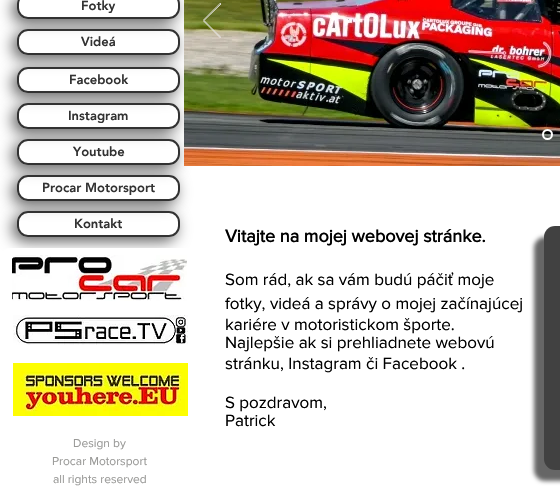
void draw(SkCanvas* canvas) {
  SkPaint paint;
  paint.setAntiAlias(true);
  auto face = [&](const char* family, int weight, float size, bool italic = false) {
    SkFontStyle style(weight, SkFontStyle::kNormal_Width,
      italic ? SkFontStyle::kItalic_Slant : SkFontStyle::kUpright_Slant);
    SkFont result(fontMgr->matchFamilyStyle(family, style), size);
    result.setSubpixel(true);
    return result;
  };
  auto paste = [&](const char* path, float x, float y, float w, float h) {
    auto image = SkImages::DeferredFromEncodedData(SkData::MakeFromFileName(path));
    canvas->drawImageRect(image, SkRect::MakeXYWH(x, y, w, h), SkSamplingOptions());
  };
  auto shape = [&](const char* data, bool evenOdd = false) {
    SkPath result = *SkParsePath::FromSVGString(data);
    if (evenOdd) result.setFillType(SkPathFillType::kEvenOdd);
    return result;
  };
  canvas->clear(0xffffffff);
  canvas->save();
  canvas->clipPath(shape("M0 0H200V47H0ZM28-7H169C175-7 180-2 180 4V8C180 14 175 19 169 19H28C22 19 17 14 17 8V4C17-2 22-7 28-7Z", true), true);
  paint.setColor(0xa6000000);
  paint.setMaskFilter(SkMaskFilter::MakeBlur(kNormal_SkBlurStyle, 7.5f));
  canvas->drawRoundRect(SkRect::MakeXYWH(13, -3, 163, 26), 11, 11, paint);
  paint.setMaskFilter(nullptr);
  canvas->restore();
  paint.setColor(0x8cffffff);
  canvas->drawRoundRect(SkRect::MakeXYWH(18, -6, 161, 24), 10, 10, paint);
  paint.setStroke(true);
  paint.setStrokeWidth(2);
  paint.setColor(0xff323232);
  canvas->drawRoundRect(SkRect::MakeXYWH(18, -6, 161, 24), 10, 10, paint);
  canvas->save();
  canvas->clipPath(shape("M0 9H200V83H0ZM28 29H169C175 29 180 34 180 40V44C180 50 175 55 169 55H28C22 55 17 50 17 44V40C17 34 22 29 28 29Z", true), true);
  paint.setStroke(false);
  paint.setColor(0xa6000000);
  paint.setMaskFilter(SkMaskFilter::MakeBlur(kNormal_SkBlurStyle, 7.5f));
  canvas->drawRoundRect(SkRect::MakeXYWH(13, 33, 163, 26), 11, 11, paint);
  paint.setMaskFilter(nullptr);
  canvas->restore();
  paint.setColor(0x8cffffff);
  canvas->drawRoundRect(SkRect::MakeXYWH(18, 30, 161, 24), 10, 10, paint);
  paint.setStroke(true);
  paint.setColor(0xff323232);
  canvas->drawRoundRect(SkRect::MakeXYWH(18, 30, 161, 24), 10, 10, paint);
  canvas->save();
  canvas->clipPath(shape("M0 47H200V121H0ZM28 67H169C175 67 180 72 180 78V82C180 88 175 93 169 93H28C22 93 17 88 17 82V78C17 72 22 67 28 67Z", true), true);
  paint.setStroke(false);
  paint.setColor(0xa6000000);
  paint.setMaskFilter(SkMaskFilter::MakeBlur(kNormal_SkBlurStyle, 7.5f));
  canvas->drawRoundRect(SkRect::MakeXYWH(13, 71, 163, 26), 11, 11, paint);
  paint.setMaskFilter(nullptr);
  canvas->restore();
  paint.setColor(0x8cffffff);
  canvas->drawRoundRect(SkRect::MakeXYWH(18, 68, 161, 24), 10, 10, paint);
  paint.setStroke(true);
  paint.setColor(0xff323232);
  canvas->drawRoundRect(SkRect::MakeXYWH(18, 68, 161, 24), 10, 10, paint);
  canvas->save();
  canvas->clipPath(shape("M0 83H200V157H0ZM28 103H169C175 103 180 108 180 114V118C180 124 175 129 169 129H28C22 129 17 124 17 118V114C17 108 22 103 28 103Z", true), true);
  paint.setStroke(false);
  paint.setColor(0xa6000000);
  paint.setMaskFilter(SkMaskFilter::MakeBlur(kNormal_SkBlurStyle, 7.5f));
  canvas->drawRoundRect(SkRect::MakeXYWH(13, 107, 163, 26), 11, 11, paint);
  paint.setMaskFilter(nullptr);
  canvas->restore();
  paint.setColor(0x8cffffff);
  canvas->drawRoundRect(SkRect::MakeXYWH(18, 104, 161, 24), 10, 10, paint);
  paint.setStroke(true);
  paint.setColor(0xff323232);
  canvas->drawRoundRect(SkRect::MakeXYWH(18, 104, 161, 24), 10, 10, paint);
  canvas->save();
  canvas->clipPath(shape("M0 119H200V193H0ZM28 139H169C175 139 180 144 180 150V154C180 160 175 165 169 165H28C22 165 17 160 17 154V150C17 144 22 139 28 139Z", true), true);
  paint.setStroke(false);
  paint.setColor(0xa6000000);
  paint.setMaskFilter(SkMaskFilter::MakeBlur(kNormal_SkBlurStyle, 7.5f));
  canvas->drawRoundRect(SkRect::MakeXYWH(13, 143, 163, 26), 11, 11, paint);
  paint.setMaskFilter(nullptr);
  canvas->restore();
  paint.setColor(0x8cffffff);
  canvas->drawRoundRect(SkRect::MakeXYWH(18, 140, 161, 24), 10, 10, paint);
  paint.setStroke(true);
  paint.setColor(0xff323232);
  canvas->drawRoundRect(SkRect::MakeXYWH(18, 140, 161, 24), 10, 10, paint);
  canvas->save();
  canvas->clipPath(shape("M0 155H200V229H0ZM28 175H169C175 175 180 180 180 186V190C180 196 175 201 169 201H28C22 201 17 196 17 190V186C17 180 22 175 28 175Z", true), true);
  paint.setStroke(false);
  paint.setColor(0xa6000000);
  paint.setMaskFilter(SkMaskFilter::MakeBlur(kNormal_SkBlurStyle, 7.5f));
  canvas->drawRoundRect(SkRect::MakeXYWH(13, 179, 163, 26), 11, 11, paint);
  paint.setMaskFilter(nullptr);
  canvas->restore();
  paint.setColor(0x8cffffff);
  canvas->drawRoundRect(SkRect::MakeXYWH(18, 176, 161, 24), 10, 10, paint);
  paint.setStroke(true);
  paint.setColor(0xff323232);
  canvas->drawRoundRect(SkRect::MakeXYWH(18, 176, 161, 24), 10, 10, paint);
  canvas->save();
  canvas->clipPath(shape("M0 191H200V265H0ZM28 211H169C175 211 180 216 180 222V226C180 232 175 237 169 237H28C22 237 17 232 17 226V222C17 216 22 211 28 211Z", true), true);
  paint.setStroke(false);
  paint.setColor(0xa6000000);
  paint.setMaskFilter(SkMaskFilter::MakeBlur(kNormal_SkBlurStyle, 7.5f));
  canvas->drawRoundRect(SkRect::MakeXYWH(13, 215, 163, 26), 11, 11, paint);
  paint.setMaskFilter(nullptr);
  canvas->restore();
  paint.setColor(0x8cffffff);
  canvas->drawRoundRect(SkRect::MakeXYWH(18, 212, 161, 24), 10, 10, paint);
  paint.setStroke(true);
  paint.setColor(0xff323232);
  canvas->drawRoundRect(SkRect::MakeXYWH(18, 212, 161, 24), 10, 10, paint);
  paint.setStroke(false);
  paint.setColor(0xffffffff);
  canvas->drawRoundRect(SkRect::MakeXYWH(-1, 248, 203, 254), 11, 11, paint);
  paste("img/1.png", 12, 255, 175, 46);
  paste("img/2.png", 13, 315, 175, 30);
  paste("img/3.png", 13, 363, 175, 53);
  paste("img/4.png", 184, 0, 376, 166);
  canvas->save();
  canvas->clipRect(SkRect::MakeXYWH(203, 3, 18, 36));
  paint.setStroke(true);
  paint.setStrokeWidth(0.9f);
  paint.setColor(0xffe8e6e6);
  canvas->drawPath(shape("M220.5 38L203 20.5L220.5 3L221 4L204 20.5L221 37.5Z"), paint);
  canvas->restore();
  paint.setStrokeWidth(2);
  paint.setColor(0xffffffff);
  canvas->drawCircle(547.5f, 134.5f, 4.5f, paint);
  paint.setStroke(false);
  paint.setColor(0x99000000);
  paint.setMaskFilter(SkMaskFilter::MakeBlur(kNormal_SkBlurStyle, 2));
  canvas->drawRoundRect(SkRect::MakeXYWH(534, 237, 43, 244), 11, 11, paint);
  paint.setMaskFilter(nullptr);
  paint.setColor(0xff414141);
  canvas->drawRoundRect(SkRect::MakeXYWH(544, 226, 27, 244), 11, 11, paint);
  auto f0 = face("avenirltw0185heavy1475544", 900, 13);
  paint.setColor(0xff323232);
  {
    const struct { const char* s; float x, y; } items[] = {
      {"Fotky", 81, 10},
      {"Videá", 81, 46},
      {"Facebook", 69, 84},
      {"Instagram", 68, 120},
      {"Youtube", 73, 156},
      {"Procar Motorsport", 42, 192},
      {"Kontakt", 74, 228},
    };
    for (auto [s, x, y] : items) {
      canvas->drawString(s, x, y, f0, paint);
    }
  }
  auto f1 = face("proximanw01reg", 400, 12);
  paint.setColor(0xff999997);
  {
    const struct { const char* s; float x, y; } items[] = {
      {"Design by", 73, 447},
      {"Procar Motorsport", 52, 465},
      {"all rights reserved", 53, 483},
    };
    for (auto [s, x, y] : items) {
      canvas->drawString(s, x, y, f1, paint);
    }
  }
  auto f2 = face("proximanw01reg", 700, 18);
  paint.setColor(0xff000000);
  canvas->drawString("Vitajte na mojej webovej stránke.", 225, 242, f2, paint);
  auto f3 = face("proximanw01reg", 400, 17);
  {
    const struct { const char* s; float x, y; } items[] = {
      {"Som rád, ak sa vám budú páčiť moje", 225, 285},
      {"fotky, videá a správy o mojej začínajúcej", 225, 309},
      {"kariére v motoristickom športe.", 225, 330},
      {"Najlepšie ak si prehliadnete webovú", 225, 348},
      {"stránku, Instagram či Facebook .", 225, 369},
      {"S pozdravom,", 225, 408},
      {"Patrick", 225, 426},
    };
    for (auto [s, x, y] : items) {
      canvas->drawString(s, x, y, f3, paint);
    }
  }
}
